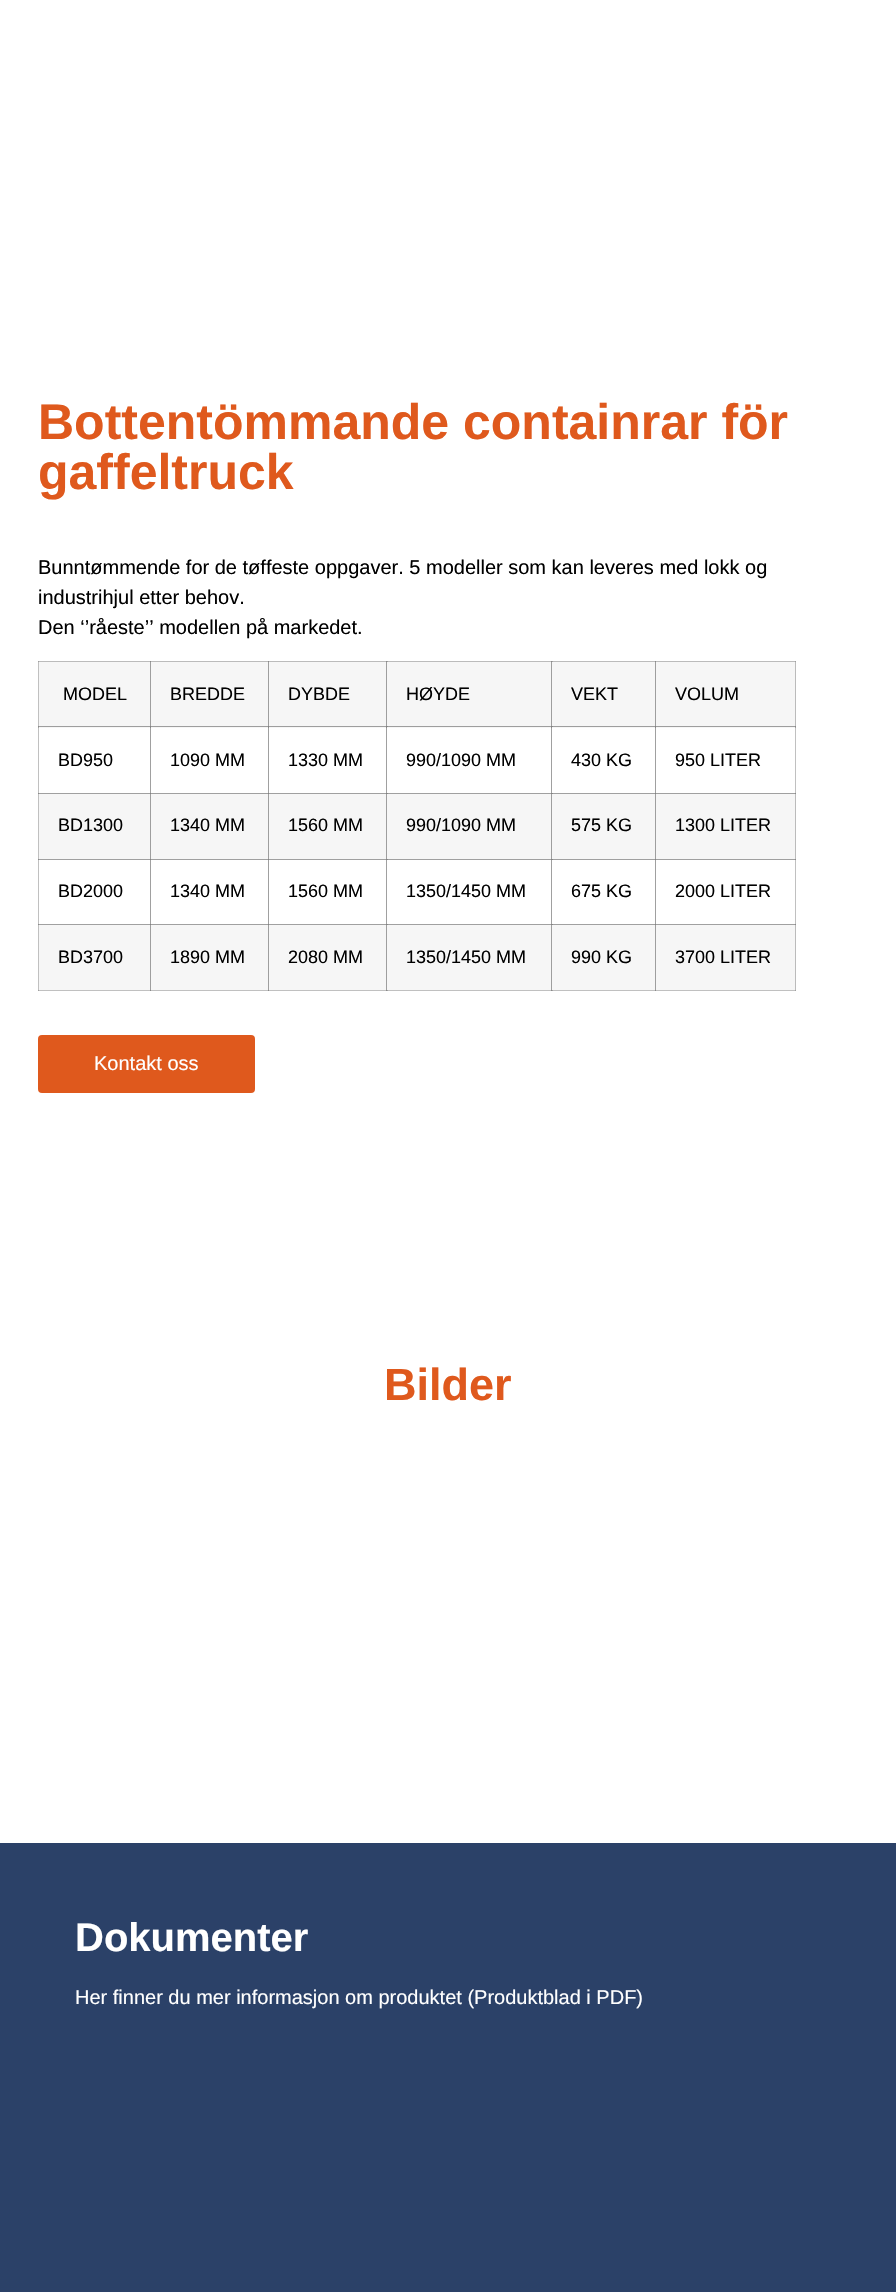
void draw(SkCanvas* canvas) {
  SkPaint paint;
  paint.setAntiAlias(true);
  auto face = [&](const char* family, int weight, float size, bool italic = false) {
    SkFontStyle style(weight, SkFontStyle::kNormal_Width,
      italic ? SkFontStyle::kItalic_Slant : SkFontStyle::kUpright_Slant);
    SkFont result(fontMgr->matchFamilyStyle(family, style), size);
    result.setSubpixel(true);
    return result;
  };
  canvas->clear(0xffffffff);
  {
    const struct { float x, y, w, h; SkColor color; } items[] = {
      {38, 661, 1, 330, 0xffc0c0c0},
      {38, 661, 1, 1, 0xffa0a0a0},
      {38, 726, 1, 2, 0xffa0a0a0},
      {38, 726, 1, 1, 0xff888888},
      {150, 726, 1, 68, 0xffa0a0a0},
      {268, 726, 1, 68, 0xffa0a0a0},
      {386, 726, 1, 68, 0xffa0a0a0},
      {551, 726, 1, 68, 0xffa0a0a0},
      {655, 726, 1, 68, 0xffa0a0a0},
      {795, 726, 1, 68, 0xffc0c0c0},
      {38, 793, 758, 1, 0xffa0a0a0},
      {38, 793, 1, 1, 0xff888888},
      {150, 793, 1, 1, 0xff818181},
      {268, 793, 1, 1, 0xff818181},
      {386, 793, 2, 1, 0xff888888},
      {386, 793, 1, 1, 0xff818181},
      {551, 793, 2, 1, 0xff888888},
      {551, 793, 1, 1, 0xff818181},
      {38, 859, 113, 1, 0xffa0a0a0},
      {38, 859, 1, 1, 0xff888888},
      {150, 859, 1, 66, 0xffa0a0a0},
      {150, 859, 119, 1, 0xffa0a0a0},
      {150, 859, 1, 1, 0xff818181},
      {268, 859, 1, 66, 0xffa0a0a0},
      {268, 859, 120, 1, 0xffa0a0a0},
      {268, 859, 1, 1, 0xff818181},
      {386, 859, 1, 66, 0xffa0a0a0},
      {386, 859, 167, 1, 0xffa0a0a0},
      {386, 859, 2, 1, 0xff888888},
      {386, 859, 1, 1, 0xff818181},
      {551, 859, 1, 66, 0xffa0a0a0},
      {551, 859, 105, 1, 0xffa0a0a0},
      {551, 859, 2, 1, 0xff888888},
      {551, 859, 1, 1, 0xff818181},
      {655, 859, 1, 66, 0xffa0a0a0},
      {795, 859, 1, 66, 0xffc0c0c0},
      {38, 990, 758, 1, 0xffc0c0c0},
      {38, 990, 1, 1, 0xffa0a0a0},
      {38, 924, 758, 1, 0xffa0a0a0},
      {38, 924, 1, 1, 0xff888888},
      {150, 990, 1, 1, 0xff888888},
      {150, 924, 1, 1, 0xff818181},
      {268, 990, 1, 1, 0xff888888},
      {268, 924, 1, 1, 0xff818181},
      {386, 990, 2, 1, 0xffa0a0a0},
      {386, 990, 1, 1, 0xff888888},
      {386, 924, 2, 1, 0xff888888},
      {386, 924, 1, 1, 0xff818181},
      {551, 990, 2, 1, 0xffa0a0a0},
      {551, 990, 1, 1, 0xff888888},
      {551, 924, 2, 1, 0xff888888},
      {551, 924, 1, 1, 0xff818181},
      {655, 990, 1, 1, 0xff888888},
      {795, 990, 1, 1, 0xffa0a0a0},
      {39, 662, 111, 66, 0xfff6f6f6},
      {39, 661, 111, 1, 0xffbbbbbb},
      {39, 726, 111, 1, 0xff9e9e9e},
      {151, 662, 117, 66, 0xfff6f6f6},
      {150, 661, 1, 67, 0xff9e9e9e},
      {150, 661, 236, 1, 0xffbbbbbb},
      {150, 661, 1, 1, 0xff888888},
      {268, 661, 1, 67, 0xff9e9e9e},
      {268, 661, 1, 1, 0xff888888},
      {150, 726, 1, 2, 0xff888888},
      {150, 726, 119, 1, 0xff9e9e9e},
      {150, 726, 1, 1, 0xff818181},
      {268, 726, 1, 2, 0xff888888},
      {268, 726, 1, 1, 0xff818181},
      {269, 662, 117, 66, 0xfff6f6f6},
      {269, 726, 117, 1, 0xff9e9e9e},
      {387, 662, 164, 66, 0xfff6f6f6},
      {386, 661, 1, 67, 0xff9e9e9e},
      {386, 661, 165, 1, 0xffbbbbbb},
      {386, 661, 2, 1, 0xff9e9e9e},
      {386, 661, 1, 1, 0xff888888},
      {386, 726, 1, 2, 0xff888888},
      {386, 726, 165, 1, 0xff9e9e9e},
      {386, 726, 2, 1, 0xff888888},
      {386, 726, 1, 1, 0xff818181},
      {552, 662, 103, 66, 0xfff6f6f6},
      {551, 661, 1, 67, 0xff9e9e9e},
      {551, 661, 104, 1, 0xffbbbbbb},
      {551, 661, 2, 1, 0xff9e9e9e},
      {551, 661, 1, 1, 0xff888888},
      {551, 726, 1, 2, 0xff888888},
      {551, 726, 104, 1, 0xff9e9e9e},
      {551, 726, 2, 1, 0xff888888},
      {551, 726, 1, 1, 0xff818181},
      {656, 662, 139, 66, 0xfff6f6f6},
      {655, 661, 1, 67, 0xff9e9e9e},
      {795, 661, 1, 67, 0xffbbbbbb},
      {655, 726, 1, 2, 0xff888888},
      {795, 726, 1, 2, 0xff9e9e9e},
      {655, 661, 141, 1, 0xffbbbbbb},
      {655, 661, 1, 1, 0xff888888},
      {795, 661, 1, 1, 0xff9e9e9e},
      {655, 726, 141, 1, 0xff9e9e9e},
      {655, 726, 1, 1, 0xff818181},
      {795, 726, 1, 1, 0xff888888},
      {39, 794, 111, 65, 0xfff6f6f6},
      {151, 794, 117, 65, 0xfff6f6f6},
      {150, 794, 1, 65, 0xff9e9e9e},
      {268, 794, 1, 65, 0xff9e9e9e},
      {269, 794, 117, 65, 0xfff6f6f6},
      {387, 794, 164, 65, 0xfff6f6f6},
      {386, 794, 1, 65, 0xff9e9e9e},
      {552, 794, 103, 65, 0xfff6f6f6},
      {551, 794, 1, 65, 0xff9e9e9e},
      {656, 794, 139, 65, 0xfff6f6f6},
      {655, 794, 1, 65, 0xff9e9e9e},
      {795, 794, 1, 65, 0xffbbbbbb},
      {655, 793, 1, 1, 0xff818181},
      {795, 793, 1, 1, 0xff888888},
      {655, 859, 141, 1, 0xffa0a0a0},
      {655, 859, 1, 1, 0xff818181},
      {795, 859, 1, 1, 0xff888888},
      {39, 925, 111, 65, 0xfff6f6f6},
      {151, 925, 117, 65, 0xfff6f6f6},
      {150, 925, 1, 65, 0xff9e9e9e},
      {268, 925, 1, 65, 0xff9e9e9e},
      {269, 925, 117, 65, 0xfff6f6f6},
      {387, 925, 164, 65, 0xfff6f6f6},
      {386, 925, 1, 65, 0xff9e9e9e},
      {552, 925, 103, 65, 0xfff6f6f6},
      {551, 925, 1, 65, 0xff9e9e9e},
      {656, 925, 139, 65, 0xfff6f6f6},
      {655, 925, 1, 65, 0xff9e9e9e},
      {795, 925, 1, 65, 0xffbbbbbb},
      {655, 924, 1, 1, 0xff818181},
      {795, 924, 1, 1, 0xff888888},
    };
    for (auto [x, y, w, h, color] : items) {
      paint.setColor(color);
      canvas->drawRect(SkRect::MakeXYWH(x, y, w, h), paint);
    }
  }
  paint.setColor(0xffdf591d);
  canvas->drawRoundRect(SkRect::MakeXYWH(38, 1035, 217, 58), 4, 4, paint);
  paint.setColor(0xff2b4168);
  canvas->drawRect(SkRect::MakeXYWH(0, 1843, 896, 449), paint);
  auto f0 = face("Liberation Sans", 700, 50);
  paint.setColor(0xffdf591d);
  canvas->drawString("Bottentömmande containrar för", 38, 439, f0, paint);
  canvas->drawString("gaffeltruck", 38, 489, f0, paint);
  auto f1 = face("Liberation Sans", 400, 20);
  paint.setColor(0xff000000);
  {
    const struct { const char* s; float x, y; } items[] = {
      {"Bunntømmende for de tøffeste oppgaver. 5 modeller som kan leveres med lokk og", 38, 574},
      {"industrihjul etter behov.", 38, 604},
      {"Den ‘’råeste’’ modellen på markedet.", 38, 634},
    };
    for (auto [s, x, y] : items) {
      canvas->drawString(s, x, y, f1, paint);
    }
  }
  auto f2 = face("Liberation Sans", 400, 18);
  {
    const struct { const char* s; float x, y; } items[] = {
      {"MODEL", 63, 700},
      {"BREDDE", 170, 700},
      {"DYBDE", 288, 700},
      {"HØYDE", 406, 700},
      {"VEKT", 571, 700},
      {"VOLUM", 675, 700},
      {"BD950", 58, 766},
      {"1090 MM", 170, 766},
      {"1330 MM", 288, 766},
      {"990/1090 MM", 406, 766},
      {"430 KG", 571, 766},
      {"950 LITER", 675, 766},
      {"BD1300", 58, 831},
      {"1340 MM", 170, 831},
      {"1560 MM", 288, 831},
      {"990/1090 MM", 406, 831},
      {"575 KG", 571, 831},
      {"1300 LITER", 675, 831},
      {"BD2000", 58, 897},
      {"1340 MM", 170, 897},
      {"1560 MM", 288, 897},
      {"1350/1450 MM", 406, 897},
      {"675 KG", 571, 897},
      {"2000 LITER", 675, 897},
      {"BD3700", 58, 963},
      {"1890 MM", 170, 963},
      {"2080 MM", 288, 963},
      {"1350/1450 MM", 406, 963},
      {"990 KG", 571, 963},
      {"3700 LITER", 675, 963},
    };
    for (auto [s, x, y] : items) {
      canvas->drawString(s, x, y, f2, paint);
    }
  }
  paint.setColor(0xffffffff);
  canvas->drawString("Kontakt oss", 94, 1070, f1, paint);
  auto f3 = face("Liberation Sans", 700, 45);
  paint.setColor(0xffdf591d);
  canvas->drawString("Bilder", 384, 1400, f3, paint);
  auto f4 = face("Liberation Sans", 700, 40);
  paint.setColor(0xffffffff);
  canvas->drawString("Dokumenter", 75, 1951, f4, paint);
  canvas->drawString("Her finner du mer informasjon om produktet (Produktblad i PDF)", 75, 2004, f1, paint);
}
